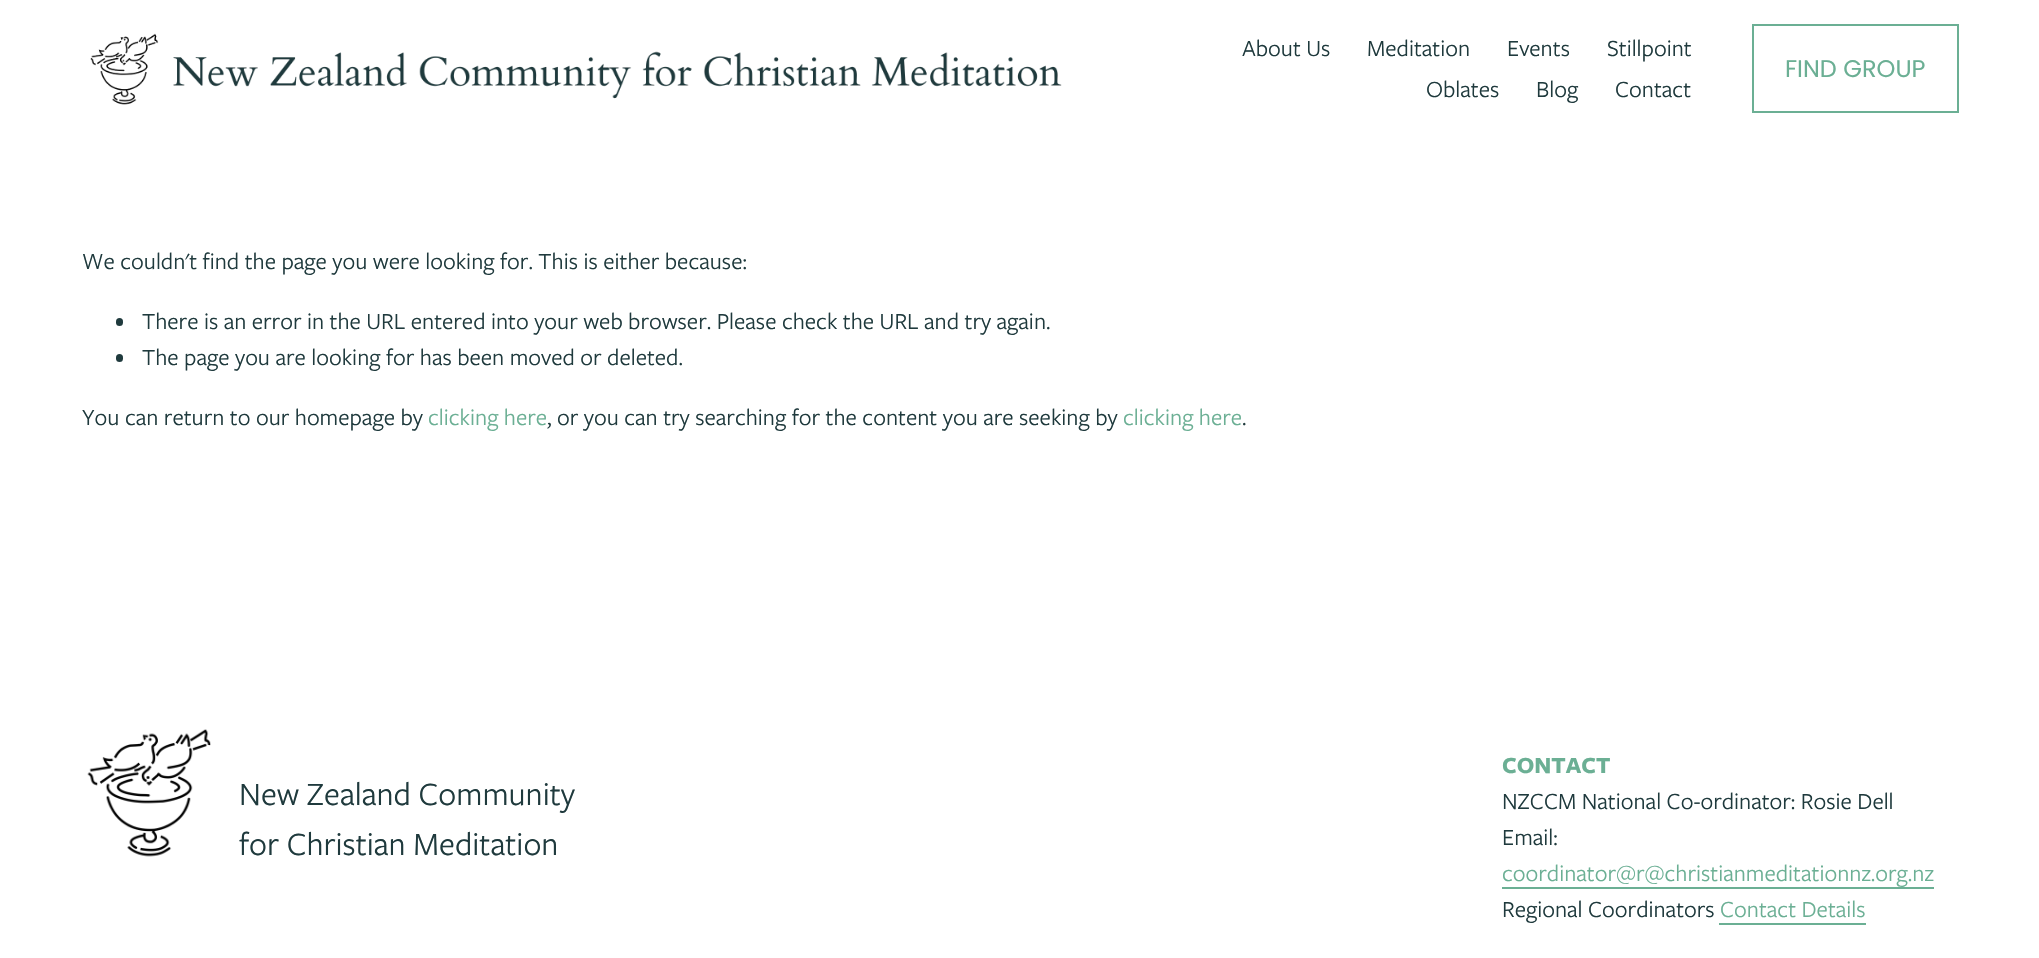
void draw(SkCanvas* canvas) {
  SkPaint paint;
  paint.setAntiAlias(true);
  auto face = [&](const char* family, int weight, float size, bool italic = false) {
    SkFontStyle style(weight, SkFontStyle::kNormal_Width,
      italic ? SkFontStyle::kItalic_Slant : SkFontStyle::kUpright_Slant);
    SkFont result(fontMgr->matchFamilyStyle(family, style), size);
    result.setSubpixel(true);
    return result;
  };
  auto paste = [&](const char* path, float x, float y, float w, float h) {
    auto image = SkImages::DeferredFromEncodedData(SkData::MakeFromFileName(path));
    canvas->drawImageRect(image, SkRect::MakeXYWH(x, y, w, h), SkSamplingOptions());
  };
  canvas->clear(0xffffffff);
  paste("img/1.png", 90, 33, 972, 72);
  paint.setStroke(true);
  paint.setStrokeWidth(2);
  paint.setColor(0xff6baf94);
  canvas->drawRect(SkRect::MakeXYWH(1753, 25, 205, 87), paint);
  paint.setStroke(false);
  paint.setColor(0xff1f3a3d);
  canvas->drawRoundRect(SkRect::MakeXYWH(116, 318, 7, 8), 3.5f, 3.5f, paint);
  canvas->drawRoundRect(SkRect::MakeXYWH(116, 354, 7, 8), 3.5f, 3.5f, paint);
  paste("img/2.png", 87, 729, 124, 128);
  paint.setColor(0xff6baf94);
  canvas->drawRect(SkRect::MakeXYWH(1502, 887, 432, 2), paint);
  canvas->drawRect(SkRect::MakeXYWH(1719, 923, 147, 2), paint);
  auto f0 = face("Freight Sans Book", 400, 24);
  paint.setColor(0xff1f3a3d);
  {
    const struct { const char* s; float x, y; } items[] = {
      {"About Us", 1242, 56},
      {"Meditation", 1367, 56},
      {"Events", 1507, 56},
      {"Stillpoint", 1607, 56},
      {"Oblates", 1426, 97},
      {"Blog", 1536, 97},
      {"Contact", 1615, 97},
    };
    for (auto [s, x, y] : items) {
      canvas->drawString(s, x, y, f0, paint);
    }
  }
  auto f1 = face("Poppins", 400, 24);
  paint.setColor(0xff6baf94);
  canvas->drawString("FIND GROUP", 1785, 77, f1, paint);
  paint.setColor(0xff1f3a3d);
  {
    const struct { const char* s; float x, y; } items[] = {
      {"We couldn't find the page you were looking for. This is either because:", 82, 269},
      {"There is an error in the URL entered into your web browser. Please check the URL and try again.", 142, 329},
      {"The page you are looking for has been moved or deleted.", 142, 365},
      {"You can return to our homepage by", 82, 425},
    };
    for (auto [s, x, y] : items) {
      canvas->drawString(s, x, y, f0, paint);
    }
  }
  paint.setColor(0xff6baf94);
  canvas->drawString("clicking here", 428, 425, f0, paint);
  paint.setColor(0xff1f3a3d);
  canvas->drawString(", or you can try searching for the content you are seeking by", 547, 425, f0, paint);
  paint.setColor(0xff6baf94);
  canvas->drawString("clicking here", 1123, 425, f0, paint);
  paint.setColor(0xff1f3a3d);
  canvas->drawString(".", 1242, 425, f0, paint);
  auto f2 = face("Freight Sans Book", 400, 33.75f);
  canvas->drawString("New Zealand Community", 239, 805, f2, paint);
  canvas->drawString("for Christian Meditation", 239, 855, f2, paint);
  auto f3 = face("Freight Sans", 700, 24);
  paint.setColor(0xff6baf94);
  canvas->drawString("CONTACT", 1502, 773, f3, paint);
  paint.setColor(0xff1f3a3d);
  canvas->drawString("NZCCM National Co-ordinator: Rosie Dell", 1502, 809, f0, paint);
  canvas->drawString("Email:", 1502, 845, f0, paint);
  paint.setColor(0xff6baf94);
  canvas->drawString("coordinator@r@christianmeditationnz.org.nz", 1502, 881, f0, paint);
  paint.setColor(0xff1f3a3d);
  canvas->drawString("Regional Coordinators", 1502, 917, f0, paint);
  paint.setColor(0xff6baf94);
  canvas->drawString("Contact Details", 1720, 917, f0, paint);
}
